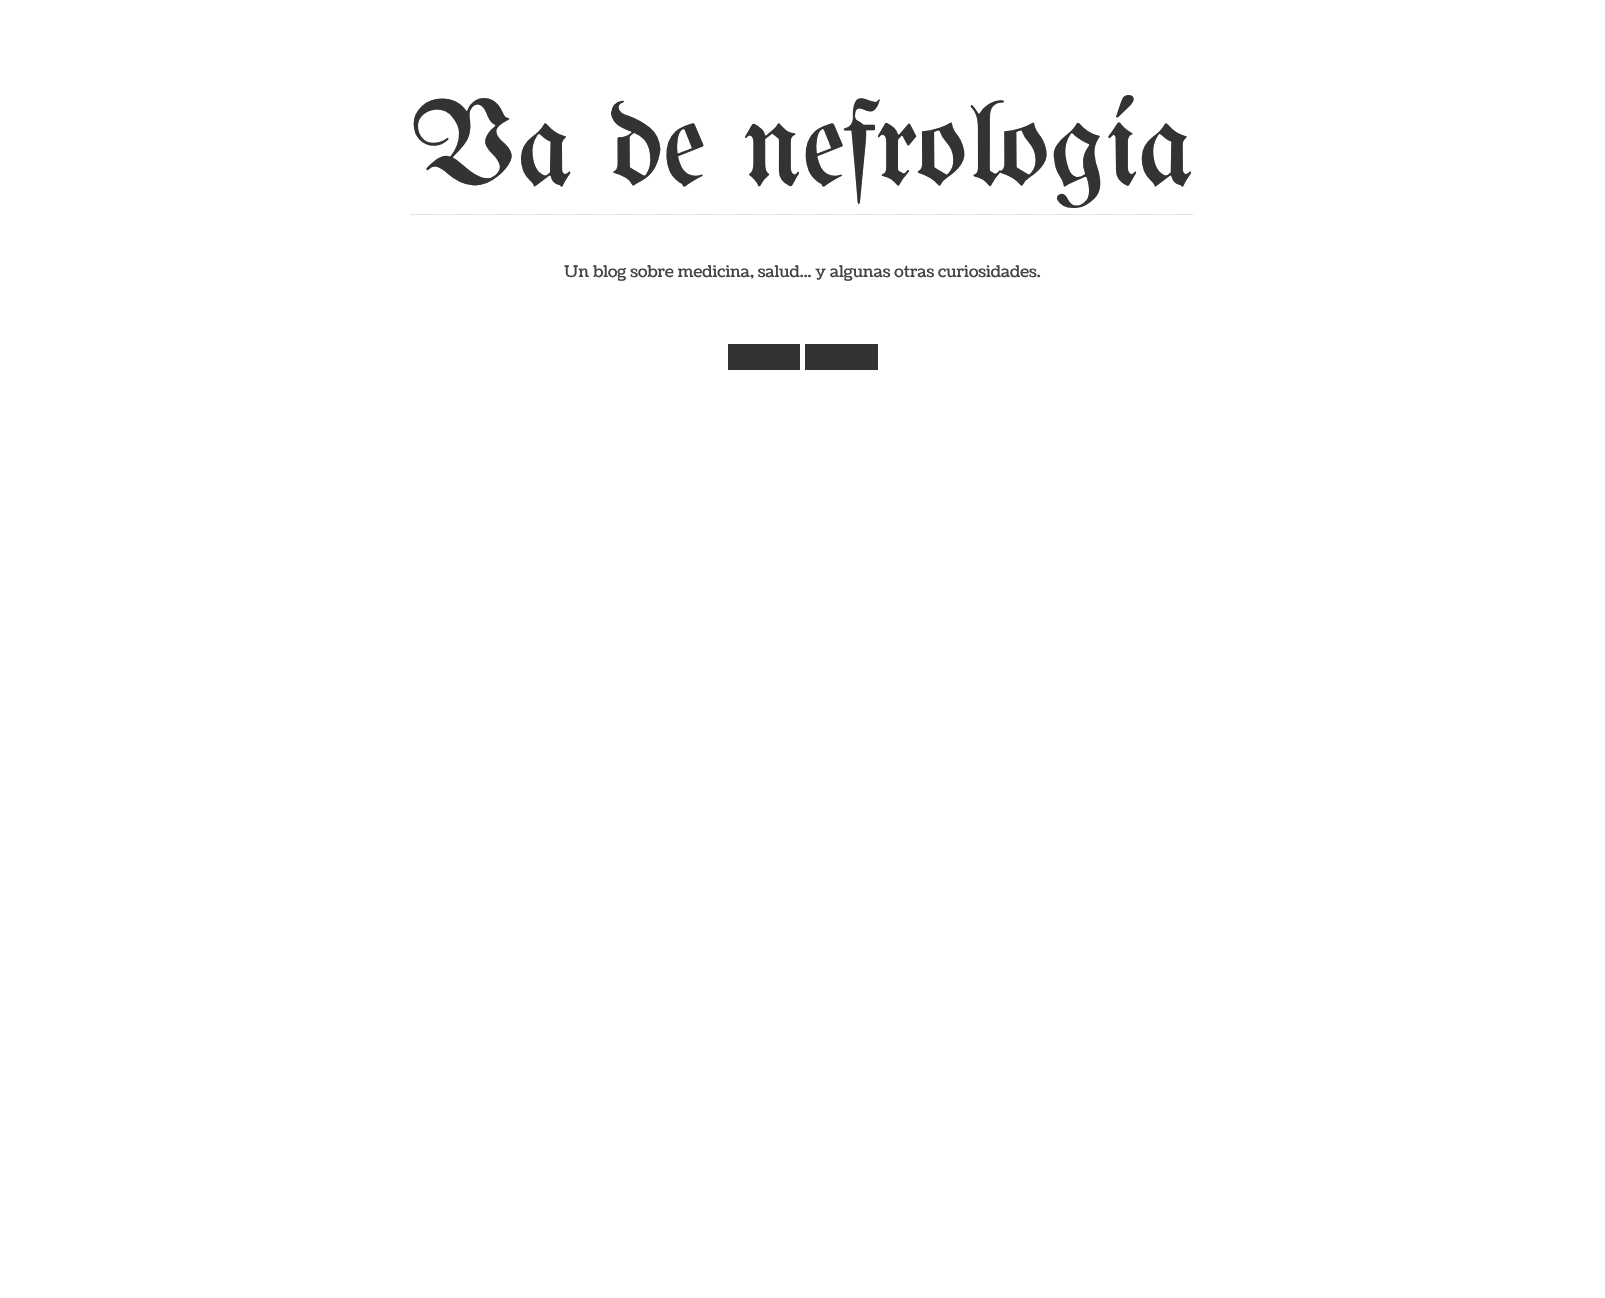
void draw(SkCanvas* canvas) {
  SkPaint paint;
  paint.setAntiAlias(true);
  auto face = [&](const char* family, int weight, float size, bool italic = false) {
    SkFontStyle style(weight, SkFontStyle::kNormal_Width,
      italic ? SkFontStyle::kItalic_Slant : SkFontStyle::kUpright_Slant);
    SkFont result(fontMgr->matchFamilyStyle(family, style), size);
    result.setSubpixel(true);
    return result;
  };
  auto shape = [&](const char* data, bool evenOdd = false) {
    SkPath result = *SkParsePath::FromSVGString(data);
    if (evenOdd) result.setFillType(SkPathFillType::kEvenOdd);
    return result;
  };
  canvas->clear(0xffffffff);
  paint.setStroke(true);
  paint.setStrokeWidth(1.2f);
  paint.setColor(0xffcccccc);
  paint.setPathEffect(SkDashPathEffect::Make({{1.25f, 1.25f}}, 0));
  canvas->drawPath(shape("M411 214.5H1194"), paint);
  paint.setPathEffect(nullptr);
  paint.setStroke(false);
  paint.setColor(0xff333333);
  canvas->drawRect(SkRect::MakeXYWH(728, 344, 72, 26), paint);
  canvas->drawRect(SkRect::MakeXYWH(805, 344, 73, 26), paint);
  auto f0 = face("UnifrakturMaguntia", 400, 120);
  canvas->drawString("Va de nefrología", 411, 184, f0, paint);
  auto f1 = face("Coustard", 400, 16);
  paint.setColor(0xff444444);
  canvas->drawString("Un blog sobre medicina, salud... y algunas otras curiosidades.", 564, 277, f1, paint);
}
